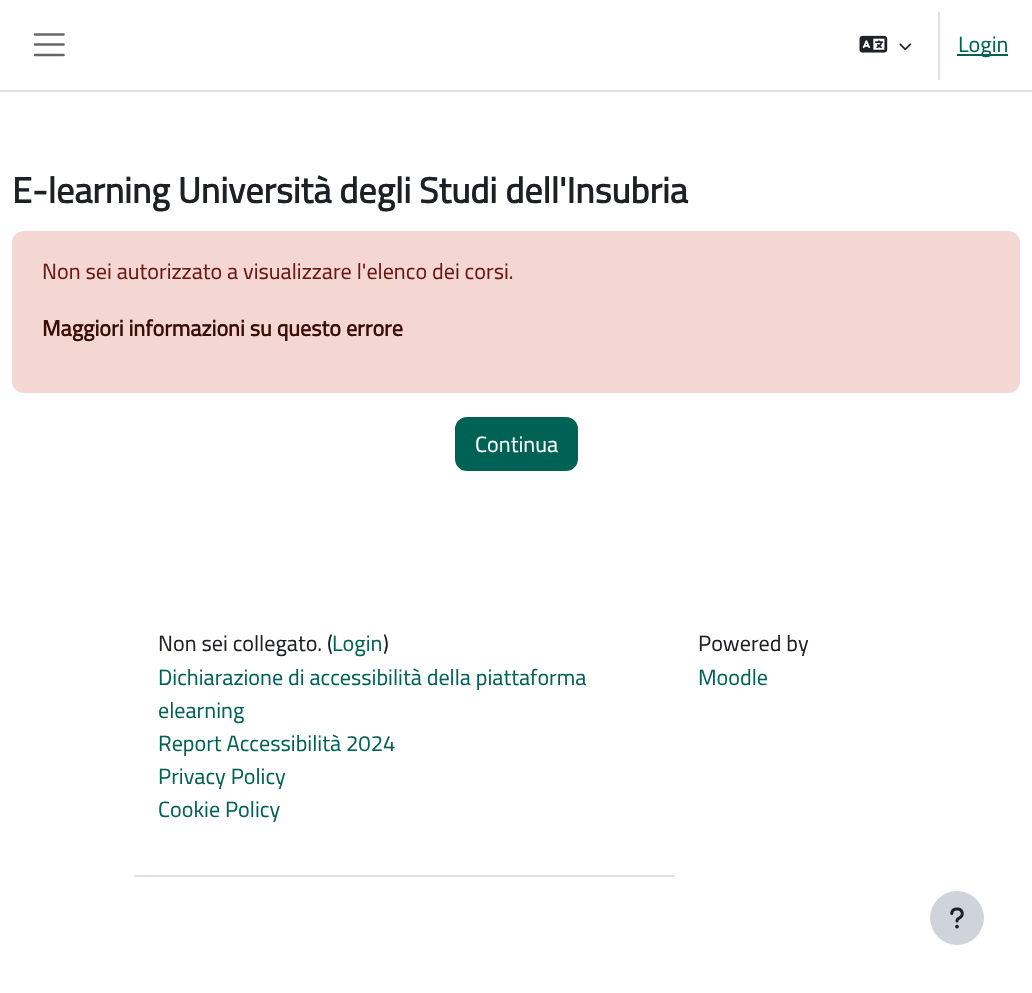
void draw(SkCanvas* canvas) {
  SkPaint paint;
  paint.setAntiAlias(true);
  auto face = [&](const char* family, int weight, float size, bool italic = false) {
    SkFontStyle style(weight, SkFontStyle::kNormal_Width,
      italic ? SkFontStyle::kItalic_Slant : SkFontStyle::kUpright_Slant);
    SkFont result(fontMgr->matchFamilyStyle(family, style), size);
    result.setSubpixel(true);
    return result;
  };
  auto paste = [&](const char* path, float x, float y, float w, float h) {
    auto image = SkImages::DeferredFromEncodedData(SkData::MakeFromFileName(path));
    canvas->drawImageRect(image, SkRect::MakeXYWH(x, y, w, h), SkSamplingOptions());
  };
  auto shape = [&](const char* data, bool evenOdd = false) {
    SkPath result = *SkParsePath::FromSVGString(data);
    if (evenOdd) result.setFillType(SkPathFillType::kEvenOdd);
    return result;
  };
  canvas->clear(0xffffffff);
  paint.setColor(0xffdee2e6);
  canvas->drawRect(SkRect::MakeXYWH(0, 90, 1032, 2), paint);
  paint.setStroke(true);
  paint.setStrokeWidth(2.6f);
  paint.setStrokeCap(SkPaint::kRound_Cap);
  paint.setColor(0xff666666);
  canvas->drawPath(shape("M35 34.5H63.5M35 44.5H63.5M35 55H63.5"), paint);
  paste("img/1.png", 859, 35, 29, 18);
  paste("img/2.png", 899, 43, 13, 8);
  paint.setStroke(false);
  paint.setColor(0xffdee2e6);
  canvas->drawRect(SkRect::MakeXYWH(938, 12, 2, 68), paint);
  paint.setColor(0xff006254);
  canvas->drawRect(SkRect::MakeXYWH(957, 54, 51, 2), paint);
  paint.setColor(0xfff4d6d2);
  canvas->drawRoundRect(SkRect::MakeXYWH(12, 231, 1008, 162), 12, 12, paint);
  paint.setColor(0xff006254);
  canvas->drawRoundRect(SkRect::MakeXYWH(456, 418, 121, 52), 11, 11, paint);
  paint.setStroke(true);
  paint.setStrokeWidth(2);
  paint.setStrokeCap(SkPaint::kButt_Cap);
  canvas->drawRoundRect(SkRect::MakeXYWH(456, 418, 121, 52), 11, 11, paint);
  paint.setStroke(false);
  paint.setColor(0xffdee2e6);
  canvas->drawRect(SkRect::MakeXYWH(134, 875, 541, 2), paint);
  paint.setColor(0xffced4da);
  canvas->drawCircle(957, 918, 27, paint);
  paste("img/3.png", 950, 907, 14, 22);
  auto f0 = face("Titillium Web", 400, 22.15f);
  paint.setColor(0xff006254);
  canvas->drawString("Login", 958, 52, f0, paint);
  auto f1 = face("Titillium Web", 700, 36);
  paint.setColor(0xff1d2125);
  canvas->drawString("E-learning Università degli Studi dell'Insubria", 12, 203, f1, paint);
  paint.setColor(0xff691911);
  canvas->drawString("Non sei autorizzato a visualizzare l'elenco dei corsi.", 42, 279, f0, paint);
  auto f2 = face("Titillium Web", 700, 22.15f);
  paint.setColor(0xff390e09);
  canvas->drawString("Maggiori informazioni su questo errore", 42, 336, f2, paint);
  paint.setColor(0xffffffff);
  canvas->drawString("Continua", 475, 452, f0, paint);
  paint.setColor(0xff1d2125);
  canvas->drawString("Non sei collegato. (", 158, 651, f0, paint);
  paint.setColor(0xff006254);
  canvas->drawString("Login", 332, 651, f0, paint);
  paint.setColor(0xff1d2125);
  canvas->drawString(")", 383, 651, f0, paint);
  paint.setColor(0xff006254);
  {
    const struct { const char* s; float x, y; } items[] = {
      {"Dichiarazione di accessibilità della piattaforma", 158, 685},
      {"elearning", 158, 718},
      {"Report Accessibilità 2024", 158, 751},
      {"Privacy Policy", 158, 784},
      {"Cookie Policy", 158, 817},
    };
    for (auto [s, x, y] : items) {
      canvas->drawString(s, x, y, f0, paint);
    }
  }
  paint.setColor(0xff1d2125);
  canvas->drawString("Powered by", 698, 651, f0, paint);
  paint.setColor(0xff006254);
  canvas->drawString("Moodle", 698, 685, f0, paint);
}
